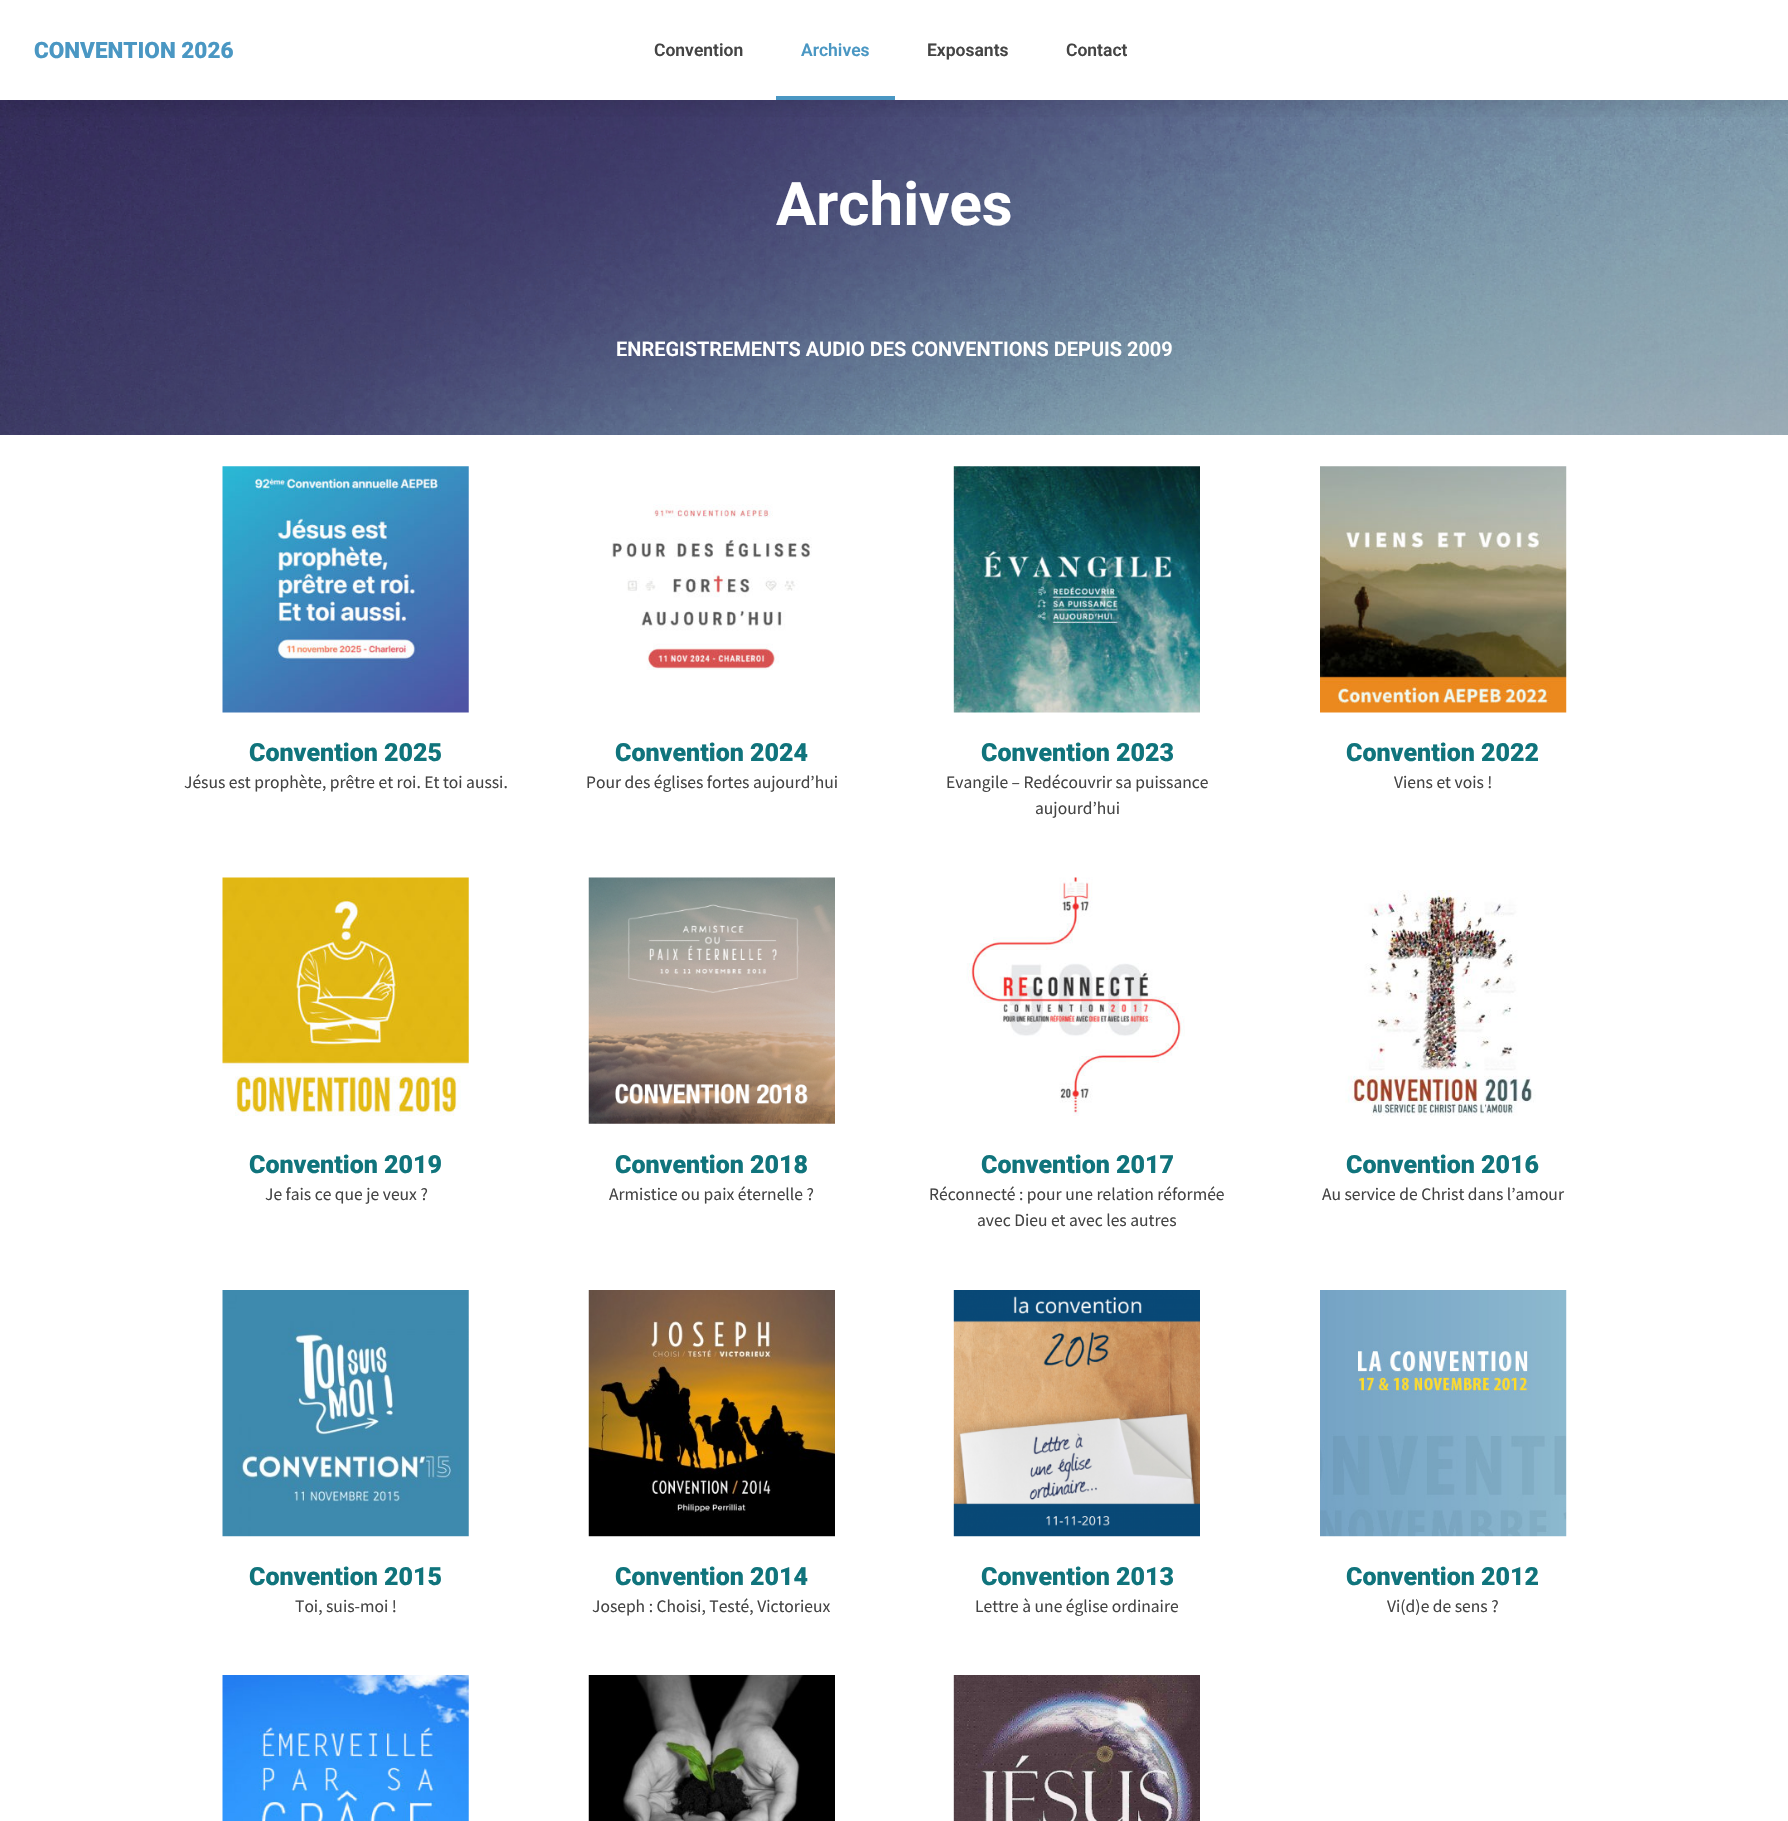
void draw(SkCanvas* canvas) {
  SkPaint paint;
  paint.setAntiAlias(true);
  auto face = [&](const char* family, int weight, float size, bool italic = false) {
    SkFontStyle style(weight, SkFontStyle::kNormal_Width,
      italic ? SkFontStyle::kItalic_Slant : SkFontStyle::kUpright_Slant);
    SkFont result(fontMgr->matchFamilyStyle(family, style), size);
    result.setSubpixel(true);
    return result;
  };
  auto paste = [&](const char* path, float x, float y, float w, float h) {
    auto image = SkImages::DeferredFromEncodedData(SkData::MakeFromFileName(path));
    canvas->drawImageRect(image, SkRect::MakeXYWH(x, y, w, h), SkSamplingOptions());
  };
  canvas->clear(0xffffffff);
  paste("img/1.png", 0, 100, 1788, 335);
  canvas->save();
  canvas->clipRect(SkRect::MakeXYWH(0, 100, 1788, 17));
  paint.setColor(0x26000000);
  paint.setMaskFilter(SkMaskFilter::MakeBlur(kNormal_SkBlurStyle, 15));
  canvas->drawRect(SkRect::MakeXYWH(0, 0, 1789, 100), paint);
  paint.setMaskFilter(nullptr);
  canvas->restore();
  paint.setColor(0xff4a97c3);
  canvas->drawRect(SkRect::MakeXYWH(776, 96, 119, 4), paint);
  paste("img/2.png", 222, 466, 247, 247);
  paste("img/3.png", 611, 504, 201, 166);
  paste("img/4.png", 953, 466, 247, 247);
  paste("img/5.png", 1320, 466, 247, 247);
  paste("img/6.png", 222, 877, 247, 239);
  paste("img/7.png", 588, 877, 247, 247);
  paste("img/8.png", 966, 877, 219, 239);
  paste("img/9.png", 1345, 890, 191, 226);
  paste("img/10.png", 222, 1290, 247, 247);
  paste("img/11.png", 588, 1290, 247, 247);
  paste("img/12.png", 953, 1290, 247, 247);
  paste("img/13.png", 1320, 1290, 247, 247);
  paste("img/14.png", 222, 1675, 247, 146);
  paste("img/15.png", 588, 1675, 247, 146);
  paste("img/16.png", 953, 1675, 247, 146);
  auto f0 = face("Roboto", 900, 22.5f);
  canvas->drawString("CONVENTION 2026", 34, 58, f0, paint);
  auto f1 = face("Roboto", 600, 17.5f);
  paint.setColor(0xff444444);
  canvas->drawString("Convention", 654, 56, f1, paint);
  paint.setColor(0xff4a97c3);
  canvas->drawString("Archives", 801, 56, f1, paint);
  paint.setColor(0xff444444);
  canvas->drawString("Exposants", 927, 56, f1, paint);
  canvas->drawString("Contact", 1066, 56, f1, paint);
  auto f2 = face("Roboto", 700, 60);
  paint.setColor(0xffffffff);
  canvas->drawString("Archives", 776, 225, f2, paint);
  auto f3 = face("Roboto", 600, 20);
  canvas->drawString("ENREGISTREMENTS AUDIO DES CONVENTIONS DEPUIS 2009", 616, 356, f3, paint);
  auto f4 = face("Roboto", 900, 25);
  paint.setColor(0xff10747c);
  canvas->drawString("Convention 2025", 249, 761, f4, paint);
  auto f5 = face("Source Sans Pro", 400, 17.5f);
  paint.setColor(0xff444444);
  canvas->drawString("Jésus est prophète, prêtre et roi. Et toi aussi.", 184, 788, f5, paint);
  paint.setColor(0xff10747c);
  canvas->drawString("Convention 2024", 615, 761, f4, paint);
  paint.setColor(0xff444444);
  canvas->drawString("Pour des églises fortes aujourd’hui", 586, 788, f5, paint);
  paint.setColor(0xff10747c);
  canvas->drawString("Convention 2023", 981, 761, f4, paint);
  paint.setColor(0xff444444);
  canvas->drawString("Evangile – Redécouvrir sa puissance", 946, 788, f5, paint);
  canvas->drawString("aujourd’hui", 1035, 814, f5, paint);
  paint.setColor(0xff10747c);
  canvas->drawString("Convention 2022", 1346, 761, f4, paint);
  paint.setColor(0xff444444);
  canvas->drawString("Viens et vois !", 1394, 788, f5, paint);
  paint.setColor(0xff10747c);
  canvas->drawString("Convention 2019", 249, 1173, f4, paint);
  paint.setColor(0xff444444);
  canvas->drawString("Je fais ce que je veux ?", 265, 1200, f5, paint);
  paint.setColor(0xff10747c);
  canvas->drawString("Convention 2018", 615, 1173, f4, paint);
  paint.setColor(0xff444444);
  canvas->drawString("Armistice ou paix éternelle ?", 609, 1200, f5, paint);
  paint.setColor(0xff10747c);
  canvas->drawString("Convention 2017", 981, 1173, f4, paint);
  paint.setColor(0xff444444);
  canvas->drawString("Réconnecté : pour une relation réformée", 929, 1200, f5, paint);
  canvas->drawString("avec Dieu et avec les autres", 977, 1226, f5, paint);
  paint.setColor(0xff10747c);
  canvas->drawString("Convention 2016", 1346, 1173, f4, paint);
  paint.setColor(0xff444444);
  canvas->drawString("Au service de Christ dans l’amour", 1322, 1200, f5, paint);
  paint.setColor(0xff10747c);
  canvas->drawString("Convention 2015", 249, 1585, f4, paint);
  paint.setColor(0xff444444);
  canvas->drawString("Toi, suis-moi !", 295, 1612, f5, paint);
  paint.setColor(0xff10747c);
  canvas->drawString("Convention 2014", 615, 1585, f4, paint);
  paint.setColor(0xff444444);
  canvas->drawString("Joseph : Choisi, Testé, Victorieux", 592, 1612, f5, paint);
  paint.setColor(0xff10747c);
  canvas->drawString("Convention 2013", 981, 1585, f4, paint);
  paint.setColor(0xff444444);
  canvas->drawString("Lettre à une église ordinaire", 975, 1612, f5, paint);
  paint.setColor(0xff10747c);
  canvas->drawString("Convention 2012", 1346, 1585, f4, paint);
  paint.setColor(0xff444444);
  canvas->drawString("Vi(d)e de sens ?", 1387, 1612, f5, paint);
}
